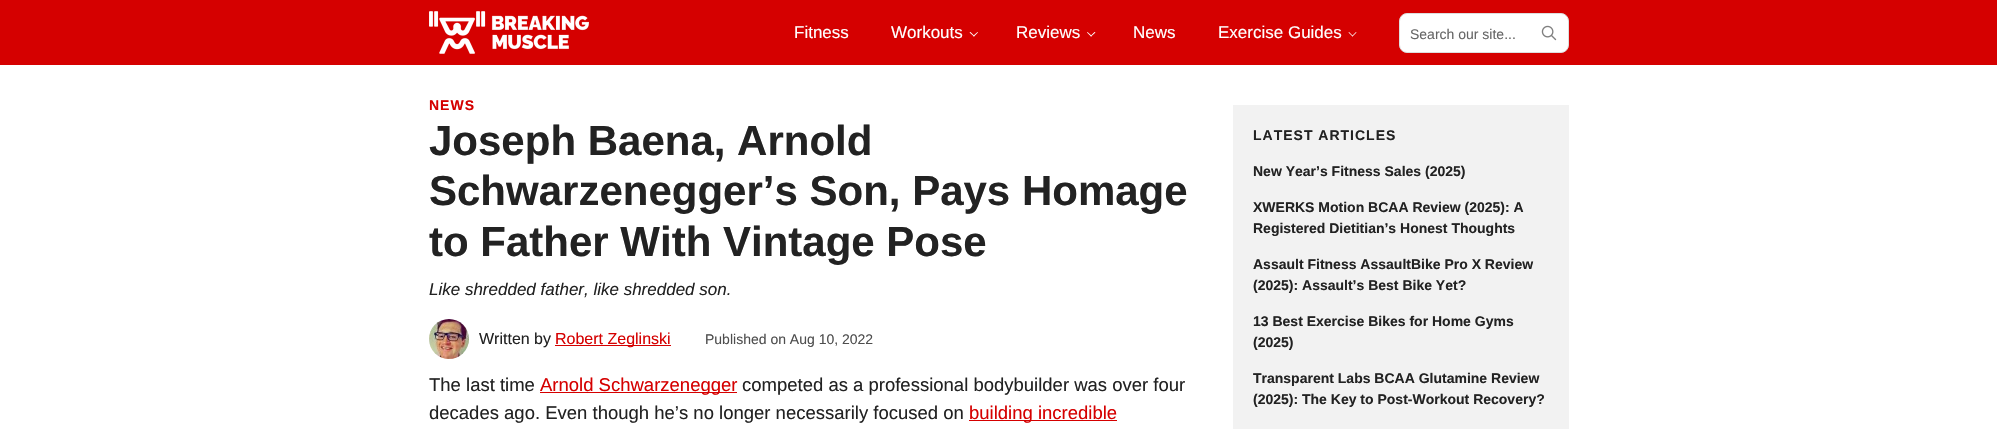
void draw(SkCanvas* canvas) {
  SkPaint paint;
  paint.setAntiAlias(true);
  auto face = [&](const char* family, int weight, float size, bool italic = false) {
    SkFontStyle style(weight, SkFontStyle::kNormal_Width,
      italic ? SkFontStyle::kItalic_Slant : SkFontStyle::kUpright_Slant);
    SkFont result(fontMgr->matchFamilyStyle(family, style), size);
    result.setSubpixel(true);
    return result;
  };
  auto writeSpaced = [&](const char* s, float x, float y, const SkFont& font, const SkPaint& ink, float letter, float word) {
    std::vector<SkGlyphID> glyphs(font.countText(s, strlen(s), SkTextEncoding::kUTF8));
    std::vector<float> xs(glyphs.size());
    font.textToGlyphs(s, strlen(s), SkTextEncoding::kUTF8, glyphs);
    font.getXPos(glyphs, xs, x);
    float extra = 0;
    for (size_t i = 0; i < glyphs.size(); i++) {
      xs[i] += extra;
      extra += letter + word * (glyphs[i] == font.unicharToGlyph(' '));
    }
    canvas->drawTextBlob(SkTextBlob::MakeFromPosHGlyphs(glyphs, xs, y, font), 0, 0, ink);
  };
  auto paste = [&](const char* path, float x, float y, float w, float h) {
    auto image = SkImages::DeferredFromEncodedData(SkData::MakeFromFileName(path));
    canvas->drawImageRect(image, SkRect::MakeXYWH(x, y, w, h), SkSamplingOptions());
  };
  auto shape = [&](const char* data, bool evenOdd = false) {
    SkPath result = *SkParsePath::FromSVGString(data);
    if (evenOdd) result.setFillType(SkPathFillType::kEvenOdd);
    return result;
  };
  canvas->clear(0xffffffff);
  paint.setColor(0xffd50000);
  canvas->drawRect(SkRect::MakeXYWH(0, 0, 1997, 65), paint);
  paste("img/1.png", 429, 11, 160, 43);
  paint.setColor(0xffffffff);
  canvas->drawPath(shape("M978 32.5L974 36.5L973 36L977.5 32Z"), paint);
  canvas->drawPath(shape("M974.5 36L974 36.5L969.5 32.5L970.5 32Z"), paint);
  canvas->drawPath(shape("M1095.5 32.5L1091 36.5L1090.5 36L1094.5 32Z"), paint);
  canvas->drawPath(shape("M1092 36L1091 36.5L1087 32.5L1087.5 32Z"), paint);
  canvas->drawPath(shape("M1356.5 32.5L1352.5 36.5L1352 36L1356 32Z"), paint);
  canvas->drawPath(shape("M1353 36L1352.5 36.5L1348.5 32.5L1349 32Z"), paint);
  canvas->drawRoundRect(SkRect::MakeXYWH(1399.5f, 13.5f, 169, 39), 7.5f, 7.5f, paint);
  paint.setStroke(true);
  paint.setStrokeWidth(1);
  paint.setColor(0xffdddddd);
  canvas->drawRoundRect(SkRect::MakeXYWH(1399.5f, 13.5f, 169, 39), 7.5f, 7.5f, paint);
  paste("img/2.png", 1541, 25, 16, 16);
  paste("img/3.png", 429, 319, 40, 40);
  paint.setStroke(false);
  {
    const struct { float x, y, w, h; SkColor color; } items[] = {
      {555, 345, 116, 1, 0xffd50000},
      {540, 392, 197, 1, 0xffd50000},
      {969, 420, 148, 1, 0xffd50000},
      {1233, 105, 336, 324, 0xfff2f2f2},
    };
    for (auto [x, y, w, h, color] : items) {
      paint.setColor(color);
      canvas->drawRect(SkRect::MakeXYWH(x, y, w, h), paint);
    }
  }
  auto f0 = face("Liberation Sans", 400, 17);
  paint.setColor(0xffffffff);
  {
    const struct { const char* s; float x, y; } items[] = {
      {"Fitness", 794, 38},
      {"Workouts", 891, 38},
      {"Reviews", 1016, 38},
      {"News", 1133, 38},
      {"Exercise Guides", 1218, 38},
    };
    for (auto [s, x, y] : items) {
      canvas->drawString(s, x, y, f0, paint);
    }
  }
  auto f1 = face("Liberation Sans", 400, 14);
  paint.setColor(0xff666666);
  canvas->drawString("Search our site...", 1410, 39, f1, paint);
  auto f2 = face("Liberation Sans", 700, 14);
  paint.setColor(0xffd50000);
  writeSpaced("NEWS", 429, 110, f2, paint, 1, 0);
  auto f3 = face("Liberation Sans", 700, 42);
  paint.setColor(0xff222222);
  {
    const struct { const char* s; float x, y; } items[] = {
      {"Joseph Baena, Arnold", 429, 155},
      {"Schwarzenegger’s Son, Pays Homage", 429, 205},
      {"to Father With Vintage Pose", 429, 256},
    };
    for (auto [s, x, y] : items) {
      canvas->drawString(s, x, y, f3, paint);
    }
  }
  auto f4 = face("Liberation Sans", 400, 17, true);
  canvas->drawString("Like shredded father, like shredded son.", 429, 295, f4, paint);
  auto f5 = face("Liberation Sans", 400, 16);
  canvas->drawString("Written by", 479, 344, f5, paint);
  paint.setColor(0xffd50000);
  canvas->drawString("Robert Zeglinski", 555, 344, f5, paint);
  paint.setColor(0xff4e4e4e);
  canvas->drawString("Published on Aug 10, 2022", 705, 344, f1, paint);
  auto f6 = face("Liberation Sans", 400, 18.5f);
  paint.setColor(0xff222222);
  canvas->drawString("The last time", 429, 391, f6, paint);
  paint.setColor(0xffd50000);
  canvas->drawString("Arnold Schwarzenegger", 540, 391, f6, paint);
  paint.setColor(0xff222222);
  canvas->drawString("competed as a professional bodybuilder was over four", 742, 391, f6, paint);
  canvas->drawString("decades ago. Even though he’s no longer necessarily focused on", 429, 419, f6, paint);
  paint.setColor(0xffd50000);
  canvas->drawString("building incredible", 969, 419, f6, paint);
  paint.setColor(0xff222222);
  writeSpaced("LATEST ARTICLES", 1253, 140, f2, paint, 1, 0);
  {
    const struct { const char* s; float x, y; } items[] = {
      {"New Year’s Fitness Sales (2025)", 1253, 176},
      {"XWERKS Motion BCAA Review (2025): A", 1253, 212},
      {"Registered Dietitian’s Honest Thoughts", 1253, 233},
      {"Assault Fitness AssaultBike Pro X Review", 1253, 269},
      {"(2025): Assault’s Best Bike Yet?", 1253, 290},
      {"13 Best Exercise Bikes for Home Gyms", 1253, 326},
      {"(2025)", 1253, 347},
      {"Transparent Labs BCAA Glutamine Review", 1253, 383},
      {"(2025): The Key to Post-Workout Recovery?", 1253, 404},
    };
    for (auto [s, x, y] : items) {
      canvas->drawString(s, x, y, f2, paint);
    }
  }
}
